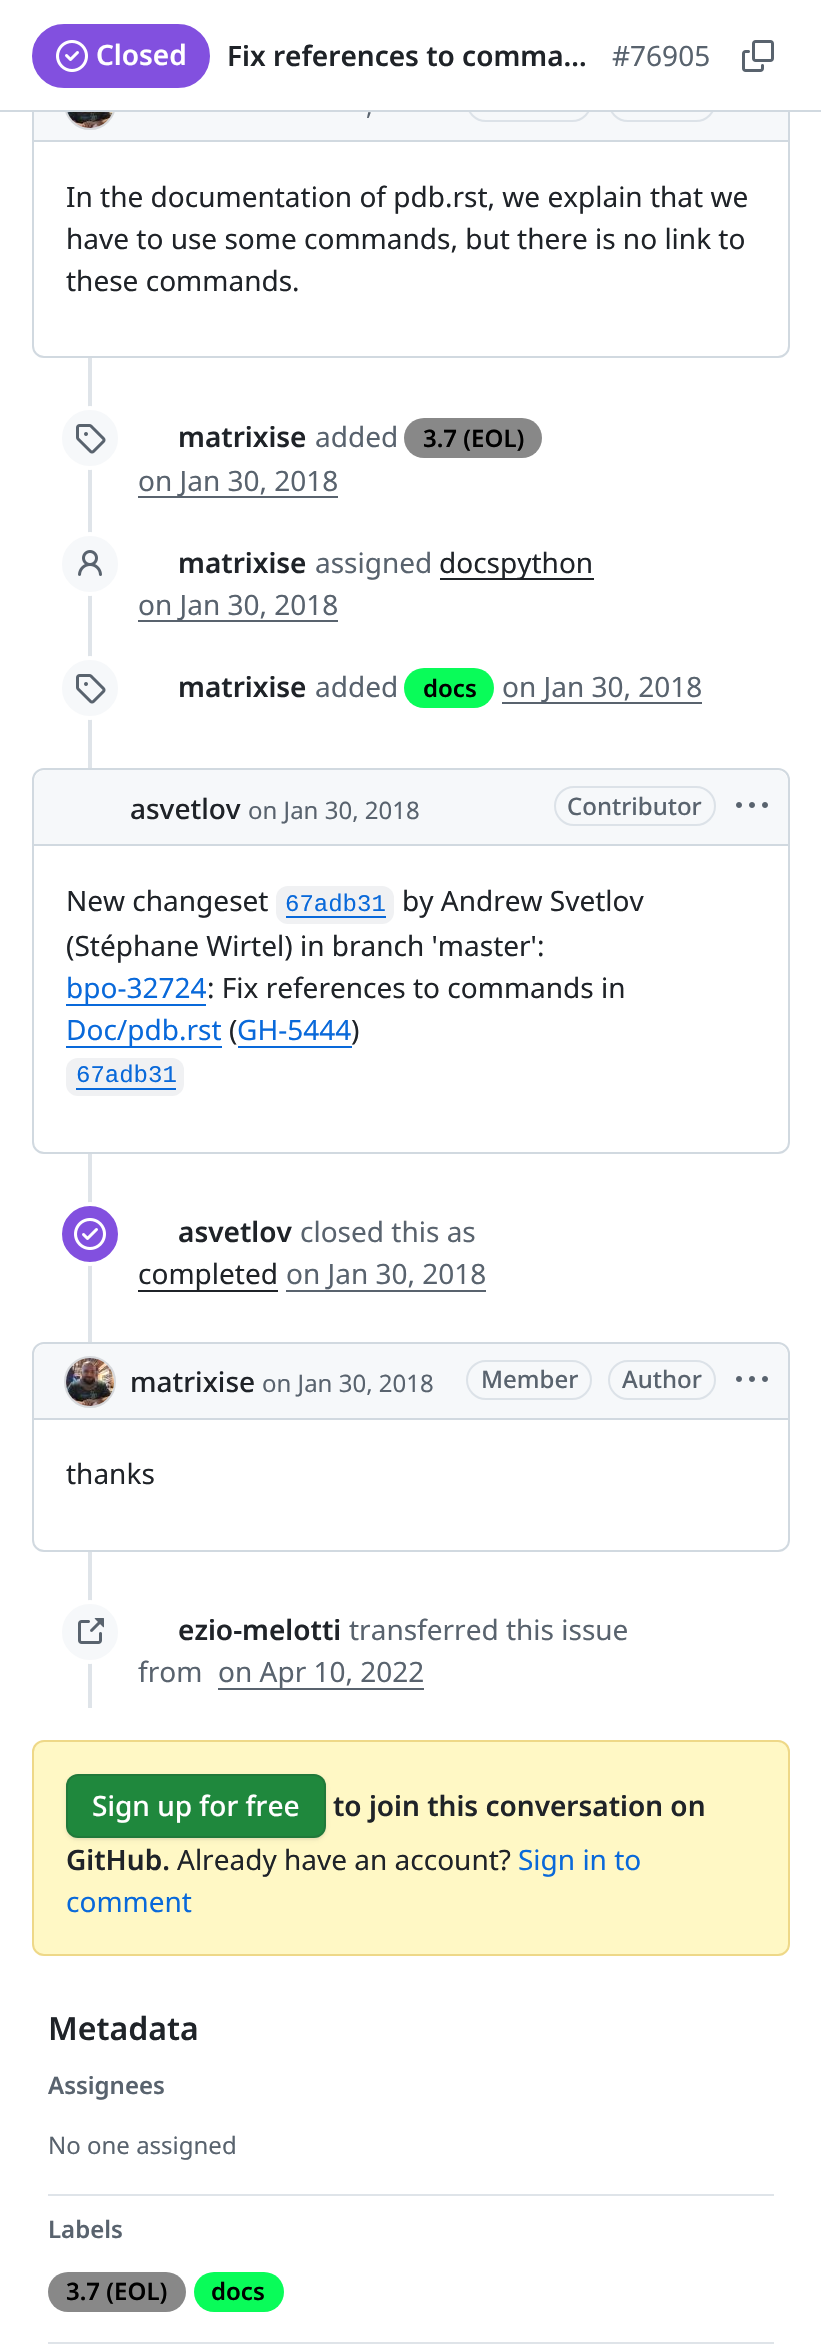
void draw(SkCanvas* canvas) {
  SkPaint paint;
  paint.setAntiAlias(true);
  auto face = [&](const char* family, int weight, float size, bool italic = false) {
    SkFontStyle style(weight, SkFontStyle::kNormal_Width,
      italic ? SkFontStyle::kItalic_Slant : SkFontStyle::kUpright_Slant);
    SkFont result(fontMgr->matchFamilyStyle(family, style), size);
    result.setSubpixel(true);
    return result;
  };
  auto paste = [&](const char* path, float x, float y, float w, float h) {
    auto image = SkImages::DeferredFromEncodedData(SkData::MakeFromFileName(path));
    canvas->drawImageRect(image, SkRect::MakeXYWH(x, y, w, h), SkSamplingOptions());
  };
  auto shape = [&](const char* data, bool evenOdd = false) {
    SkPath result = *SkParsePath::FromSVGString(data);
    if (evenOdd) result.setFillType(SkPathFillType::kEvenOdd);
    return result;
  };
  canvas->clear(0xffffffff);
  paint.setStroke(true);
  paint.setStrokeWidth(2);
  paint.setColor(0xffd1d9e0);
  canvas->drawRoundRect(SkRect::MakeXYWH(33, 65, 756, 292), 11, 11, paint);
  paint.setStroke(false);
  paint.setColor(0xfff6f8fa);
  canvas->drawRect(SkRect::MakeXYWH(34, 112, 754, 28), paint);
  paint.setStroke(true);
  paint.setColor(0xffd6d8db);
  canvas->drawCircle(90, 104, 25, paint);
  paint.setColor(0xffdce2e8);
  canvas->drawRoundRect(SkRect::MakeXYWH(467, 83, 124, 38), 19, 19, paint);
  canvas->drawRoundRect(SkRect::MakeXYWH(609, 83, 106, 38), 19, 19, paint);
  paint.setStroke(false);
  paint.setColor(0xffffffff);
  canvas->drawRect(SkRect::MakeXYWH(32, 64, 758, 46), paint);
  paint.setColor(0xffd1d9e0);
  canvas->drawRect(SkRect::MakeXYWH(0, 110, 821, 2), paint);
  paint.setColor(0xff8250df);
  canvas->drawRoundRect(SkRect::MakeXYWH(33, 25, 176, 62), 31, 31, paint);
  paint.setStroke(true);
  canvas->drawRoundRect(SkRect::MakeXYWH(33, 25, 176, 62), 31, 31, paint);
  paste("img/1.png", 56, 40, 32, 32);
  paste("img/2.png", 742, 40, 32, 32);
  paint.setStroke(false);
  paint.setColor(0xffd1d9e0);
  canvas->drawRect(SkRect::MakeXYWH(34, 140, 754, 2), paint);
  paste("img/3.png", 67, 112, 46, 16);
  paint.setColor(0xffdfe4e9);
  canvas->drawRect(SkRect::MakeXYWH(88, 358, 4, 282), paint);
  paint.setColor(0xfff6f8fa);
  canvas->drawCircle(90, 438, 30, paint);
  paint.setStroke(true);
  paint.setStrokeWidth(4);
  paint.setColor(0xffffffff);
  canvas->drawCircle(90, 438, 30, paint);
  paste("img/4.png", 76, 424, 30, 30);
  paint.setStroke(false);
  paint.setColor(0xff888888);
  canvas->drawRoundRect(SkRect::MakeXYWH(404, 418, 138, 40), 20, 20, paint);
  paint.setColor(0xff59636e);
  canvas->drawRect(SkRect::MakeXYWH(138, 496, 200, 2), paint);
  paint.setColor(0xfff6f8fa);
  canvas->drawCircle(90, 564, 30, paint);
  paint.setStroke(true);
  paint.setColor(0xffffffff);
  canvas->drawCircle(90, 564, 30, paint);
  paste("img/5.png", 78, 550, 24, 26);
  paint.setStroke(false);
  {
    const struct { float x, y, w, h; SkColor color; } items[] = {
      {440, 578, 154, 2, 0xff1f2328},
      {138, 620, 200, 2, 0xff59636e},
      {88, 640, 4, 128, 0xffdfe4e9},
    };
    for (auto [x, y, w, h, color] : items) {
      paint.setColor(color);
      canvas->drawRect(SkRect::MakeXYWH(x, y, w, h), paint);
    }
  }
  paint.setColor(0xfff6f8fa);
  canvas->drawCircle(90, 688, 30, paint);
  paint.setStroke(true);
  paint.setColor(0xffffffff);
  canvas->drawCircle(90, 688, 30, paint);
  paste("img/4.png", 76, 674, 30, 30);
  paint.setStroke(false);
  paint.setColor(0xff09fc59);
  canvas->drawRoundRect(SkRect::MakeXYWH(404, 668, 90, 40), 20, 20, paint);
  paint.setColor(0xff59636e);
  canvas->drawRect(SkRect::MakeXYWH(502, 702, 200, 2), paint);
  paint.setStroke(true);
  paint.setStrokeWidth(2);
  paint.setColor(0xffd1d9e0);
  canvas->drawRoundRect(SkRect::MakeXYWH(33, 769, 756, 384), 11, 11, paint);
  paint.setStroke(false);
  paint.setColor(0xfff6f8fa);
  canvas->drawPath(shape("M46 770H776C782.5 770 788 775.5 788 782V846H34V782C34 775.5 39.5 770 46 770Z"), paint);
  paint.setColor(0xffd1d9e0);
  canvas->drawRect(SkRect::MakeXYWH(34, 844, 754, 2), paint);
  paint.setStroke(true);
  paint.setColor(0xffdce2e8);
  canvas->drawRoundRect(SkRect::MakeXYWH(555, 787, 160, 38), 19, 19, paint);
  paste("img/6.png", 736, 802, 32, 6);
  paint.setStroke(false);
  paint.setColor(0xfff0f1f3);
  canvas->drawRoundRect(SkRect::MakeXYWH(276, 886, 118, 38), 12, 12, paint);
  {
    const struct { float x, y, w, h; SkColor color; } items[] = {
      {286, 916, 100, 2, 0xff0969da},
      {66, 1004, 140, 2, 0xff0969da},
      {66, 1046, 156, 2, 0xff0969da},
      {238, 1046, 114, 2, 0xff0969da},
    };
    for (auto [x, y, w, h, color] : items) {
      paint.setColor(color);
      canvas->drawRect(SkRect::MakeXYWH(x, y, w, h), paint);
    }
  }
  paint.setColor(0xfff0f1f3);
  canvas->drawRoundRect(SkRect::MakeXYWH(66, 1058, 118, 38), 12, 12, paint);
  {
    const struct { float x, y, w, h; SkColor color; } items[] = {
      {76, 1088, 100, 2, 0xff0969da},
      {88, 1154, 4, 32, 0xffdfe4e9},
      {88, 1186, 4, 156, 0xffdfe4e9},
    };
    for (auto [x, y, w, h, color] : items) {
      paint.setColor(color);
      canvas->drawRect(SkRect::MakeXYWH(x, y, w, h), paint);
    }
  }
  paint.setColor(0xff8250df);
  canvas->drawCircle(90, 1234, 30, paint);
  paint.setStroke(true);
  paint.setStrokeWidth(4);
  paint.setColor(0xffffffff);
  canvas->drawCircle(90, 1234, 30, paint);
  paste("img/7.png", 74, 1218, 32, 32);
  paint.setStroke(false);
  paint.setColor(0xff1f2328);
  canvas->drawRect(SkRect::MakeXYWH(138, 1290, 140, 2), paint);
  paint.setColor(0xff59636e);
  canvas->drawRect(SkRect::MakeXYWH(286, 1290, 200, 2), paint);
  paint.setStroke(true);
  paint.setStrokeWidth(2);
  paint.setColor(0xffd1d9e0);
  canvas->drawRoundRect(SkRect::MakeXYWH(33, 1343, 756, 208), 11, 11, paint);
  paint.setStroke(false);
  paint.setColor(0xfff6f8fa);
  canvas->drawPath(shape("M46 1344H776C782.5 1344 788 1349.5 788 1356V1420H34V1356C34 1349.5 39.5 1344 46 1344Z"), paint);
  paint.setColor(0xffd1d9e0);
  canvas->drawRect(SkRect::MakeXYWH(34, 1418, 754, 2), paint);
  paint.setStroke(true);
  paint.setColor(0xffd6d8db);
  canvas->drawCircle(90, 1382, 25, paint);
  paste("img/8.png", 66, 1358, 48, 48);
  paint.setColor(0xffdce2e8);
  canvas->drawRoundRect(SkRect::MakeXYWH(467, 1361, 124, 38), 19, 19, paint);
  canvas->drawRoundRect(SkRect::MakeXYWH(609, 1361, 106, 38), 19, 19, paint);
  paste("img/6.png", 736, 1376, 32, 6);
  paint.setStroke(false);
  paint.setColor(0xffdfe4e9);
  canvas->drawRect(SkRect::MakeXYWH(88, 1552, 4, 156), paint);
  paint.setColor(0xfff6f8fa);
  canvas->drawCircle(90, 1632, 30, paint);
  paint.setStroke(true);
  paint.setStrokeWidth(4);
  paint.setColor(0xffffffff);
  canvas->drawCircle(90, 1632, 30, paint);
  paste("img/9.png", 78, 1618, 26, 26);
  paint.setStroke(false);
  paint.setColor(0xff59636e);
  canvas->drawRect(SkRect::MakeXYWH(218, 1688, 206, 2), paint);
  paint.setColor(0xfffff8c5);
  canvas->drawRoundRect(SkRect::MakeXYWH(32, 1740, 758, 216), 12, 12, paint);
  paint.setStroke(true);
  paint.setStrokeWidth(2);
  paint.setColor(0x66d4a72c);
  canvas->drawRoundRect(SkRect::MakeXYWH(33, 1741, 756, 214), 11, 11, paint);
  paint.setStroke(false);
  paint.setColor(0x0f1f2328);
  paint.setMaskFilter(SkMaskFilter::MakeBlur(kNormal_SkBlurStyle, 3));
  canvas->drawRoundRect(SkRect::MakeXYWH(66, 1776, 260, 64), 12, 12, paint);
  paint.setMaskFilter(nullptr);
  paint.setMaskFilter(SkMaskFilter::MakeBlur(kNormal_SkBlurStyle, 1));
  canvas->drawRoundRect(SkRect::MakeXYWH(66, 1776, 260, 64), 12, 12, paint);
  paint.setMaskFilter(nullptr);
  paint.setColor(0xff1f883d);
  canvas->drawRoundRect(SkRect::MakeXYWH(66, 1774, 260, 64), 12, 12, paint);
  paint.setStroke(true);
  paint.setColor(0x261f2328);
  canvas->drawRoundRect(SkRect::MakeXYWH(67, 1775, 258, 62), 11, 11, paint);
  paint.setStroke(false);
  paint.setColor(0xffdfe4e9);
  canvas->drawRect(SkRect::MakeXYWH(48, 2194, 726, 2), paint);
  paint.setColor(0xff888888);
  canvas->drawRoundRect(SkRect::MakeXYWH(48, 2272, 138, 40), 20, 20, paint);
  paint.setColor(0xff09fc59);
  canvas->drawRoundRect(SkRect::MakeXYWH(194, 2272, 90, 40), 20, 20, paint);
  paint.setColor(0xffdfe4e9);
  canvas->drawRect(SkRect::MakeXYWH(48, 2342, 726, 2), paint);
  auto f0 = face("Noto Sans", 600, 28);
  paint.setColor(0xffffffff);
  canvas->drawString("Closed", 96, 65, f0, paint);
  paint.setColor(0xff1f2328);
  canvas->drawString("Fix references to comma…", 227, 66, f0, paint);
  auto f1 = face("Noto Sans", 400, 28);
  paint.setColor(0xff59636e);
  canvas->drawString("#76905", 612, 66, f1, paint);
  auto f2 = face("Noto Sans", 400, 24);
  canvas->drawString(",", 366, 115, f2, paint);
  paint.setColor(0xff1f2328);
  {
    const struct { const char* s; float x, y; } items[] = {
      {"In the documentation of pdb.rst, we explain that we", 66, 207},
      {"have to use some commands, but there is no link to", 66, 249},
      {"these commands.", 66, 291},
    };
    for (auto [s, x, y] : items) {
      canvas->drawString(s, x, y, f1, paint);
    }
  }
  canvas->drawString("matrixise", 178, 447, f0, paint);
  paint.setColor(0xff59636e);
  canvas->drawString("added", 315, 447, f1, paint);
  auto f3 = face("Noto Sans", 600, 24);
  paint.setColor(0xff000000);
  canvas->drawString("3.7 (EOL)", 423, 447, f3, paint);
  paint.setColor(0xff59636e);
  canvas->drawString("on Jan 30, 2018", 138, 491, f1, paint);
  paint.setColor(0xff1f2328);
  canvas->drawString("matrixise", 178, 573, f0, paint);
  paint.setColor(0xff59636e);
  canvas->drawString("assigned", 315, 573, f1, paint);
  paint.setColor(0xff1f2328);
  canvas->drawString("docspython", 439, 573, f1, paint);
  paint.setColor(0xff59636e);
  canvas->drawString("on Jan 30, 2018", 138, 615, f1, paint);
  paint.setColor(0xff1f2328);
  canvas->drawString("matrixise", 178, 697, f0, paint);
  paint.setColor(0xff59636e);
  canvas->drawString("added", 315, 697, f1, paint);
  paint.setColor(0xff000000);
  canvas->drawString("docs", 423, 697, f3, paint);
  paint.setColor(0xff59636e);
  canvas->drawString("on Jan 30, 2018", 502, 697, f1, paint);
  auto f4 = face("Noto Sans", 500, 28);
  paint.setColor(0xff1f2328);
  canvas->drawString("asvetlov", 130, 819, f4, paint);
  paint.setColor(0xff59636e);
  canvas->drawString("on Jan 30, 2018", 248, 819, f2, paint);
  auto f5 = face("Noto Sans", 500, 24);
  canvas->drawString("Contributor", 567, 815, f5, paint);
  paint.setColor(0xff1f2328);
  canvas->drawString("New changeset", 66, 911, f1, paint);
  auto f6 = face("Liberation Mono", 400, 24);
  paint.setColor(0xff0969da);
  canvas->drawString("67adb31", 285, 911, f6, paint);
  paint.setColor(0xff1f2328);
  canvas->drawString("by Andrew Svetlov", 402, 911, f1, paint);
  canvas->drawString("(Stéphane Wirtel) in branch 'master':", 66, 956, f1, paint);
  paint.setColor(0xff0969da);
  canvas->drawString("bpo-32724", 66, 998, f1, paint);
  paint.setColor(0xff1f2328);
  canvas->drawString(": Fix references to commands in", 207, 998, f1, paint);
  paint.setColor(0xff0969da);
  canvas->drawString("Doc/pdb.rst", 66, 1040, f1, paint);
  paint.setColor(0xff1f2328);
  canvas->drawString("(", 229, 1040, f1, paint);
  paint.setColor(0xff0969da);
  canvas->drawString("GH-5444", 237, 1040, f1, paint);
  paint.setColor(0xff1f2328);
  canvas->drawString(")", 351, 1040, f1, paint);
  paint.setColor(0xff0969da);
  canvas->drawString("67adb31", 76, 1082, f6, paint);
  paint.setColor(0xff1f2328);
  canvas->drawString("asvetlov", 178, 1242, f0, paint);
  paint.setColor(0xff59636e);
  canvas->drawString("closed this as", 300, 1242, f1, paint);
  paint.setColor(0xff1f2328);
  canvas->drawString("completed", 138, 1284, f1, paint);
  paint.setColor(0xff59636e);
  canvas->drawString("on Jan 30, 2018", 286, 1284, f1, paint);
  paint.setColor(0xff1f2328);
  canvas->drawString("matrixise", 130, 1392, f4, paint);
  paint.setColor(0xff59636e);
  canvas->drawString("on Jan 30, 2018", 262, 1392, f2, paint);
  canvas->drawString("Member", 481, 1388, f5, paint);
  canvas->drawString("Author", 622, 1388, f5, paint);
  paint.setColor(0xff1f2328);
  canvas->drawString("thanks", 66, 1484, f1, paint);
  canvas->drawString("ezio-melotti", 178, 1640, f0, paint);
  paint.setColor(0xff59636e);
  {
    const struct { const char* s; float x, y; } items[] = {
      {"transferred this issue", 349, 1640},
      {"from", 138, 1682},
      {"on Apr 10, 2022", 218, 1682},
    };
    for (auto [s, x, y] : items) {
      canvas->drawString(s, x, y, f1, paint);
    }
  }
  paint.setColor(0xffffffff);
  canvas->drawString("Sign up for free", 92, 1816, f4, paint);
  paint.setColor(0xff1f2328);
  canvas->drawString("to join this conversation on", 333, 1816, f0, paint);
  canvas->drawString("GitHub.", 66, 1870, f0, paint);
  canvas->drawString("Already have an account?", 177, 1870, f1, paint);
  paint.setColor(0xff0969da);
  canvas->drawString("Sign in to", 518, 1870, f1, paint);
  canvas->drawString("comment", 66, 1912, f1, paint);
  auto f7 = face("Noto Sans", 600, 32);
  paint.setColor(0xff1f2328);
  canvas->drawString("Metadata", 48, 2040, f7, paint);
  paint.setColor(0xff59636e);
  canvas->drawString("Assignees", 48, 2094, f3, paint);
  canvas->drawString("No one assigned", 48, 2154, f2, paint);
  canvas->drawString("Labels", 48, 2238, f3, paint);
  paint.setColor(0xff000000);
  canvas->drawString("3.7 (EOL)", 66, 2300, f3, paint);
  canvas->drawString("docs", 211, 2300, f3, paint);
}
